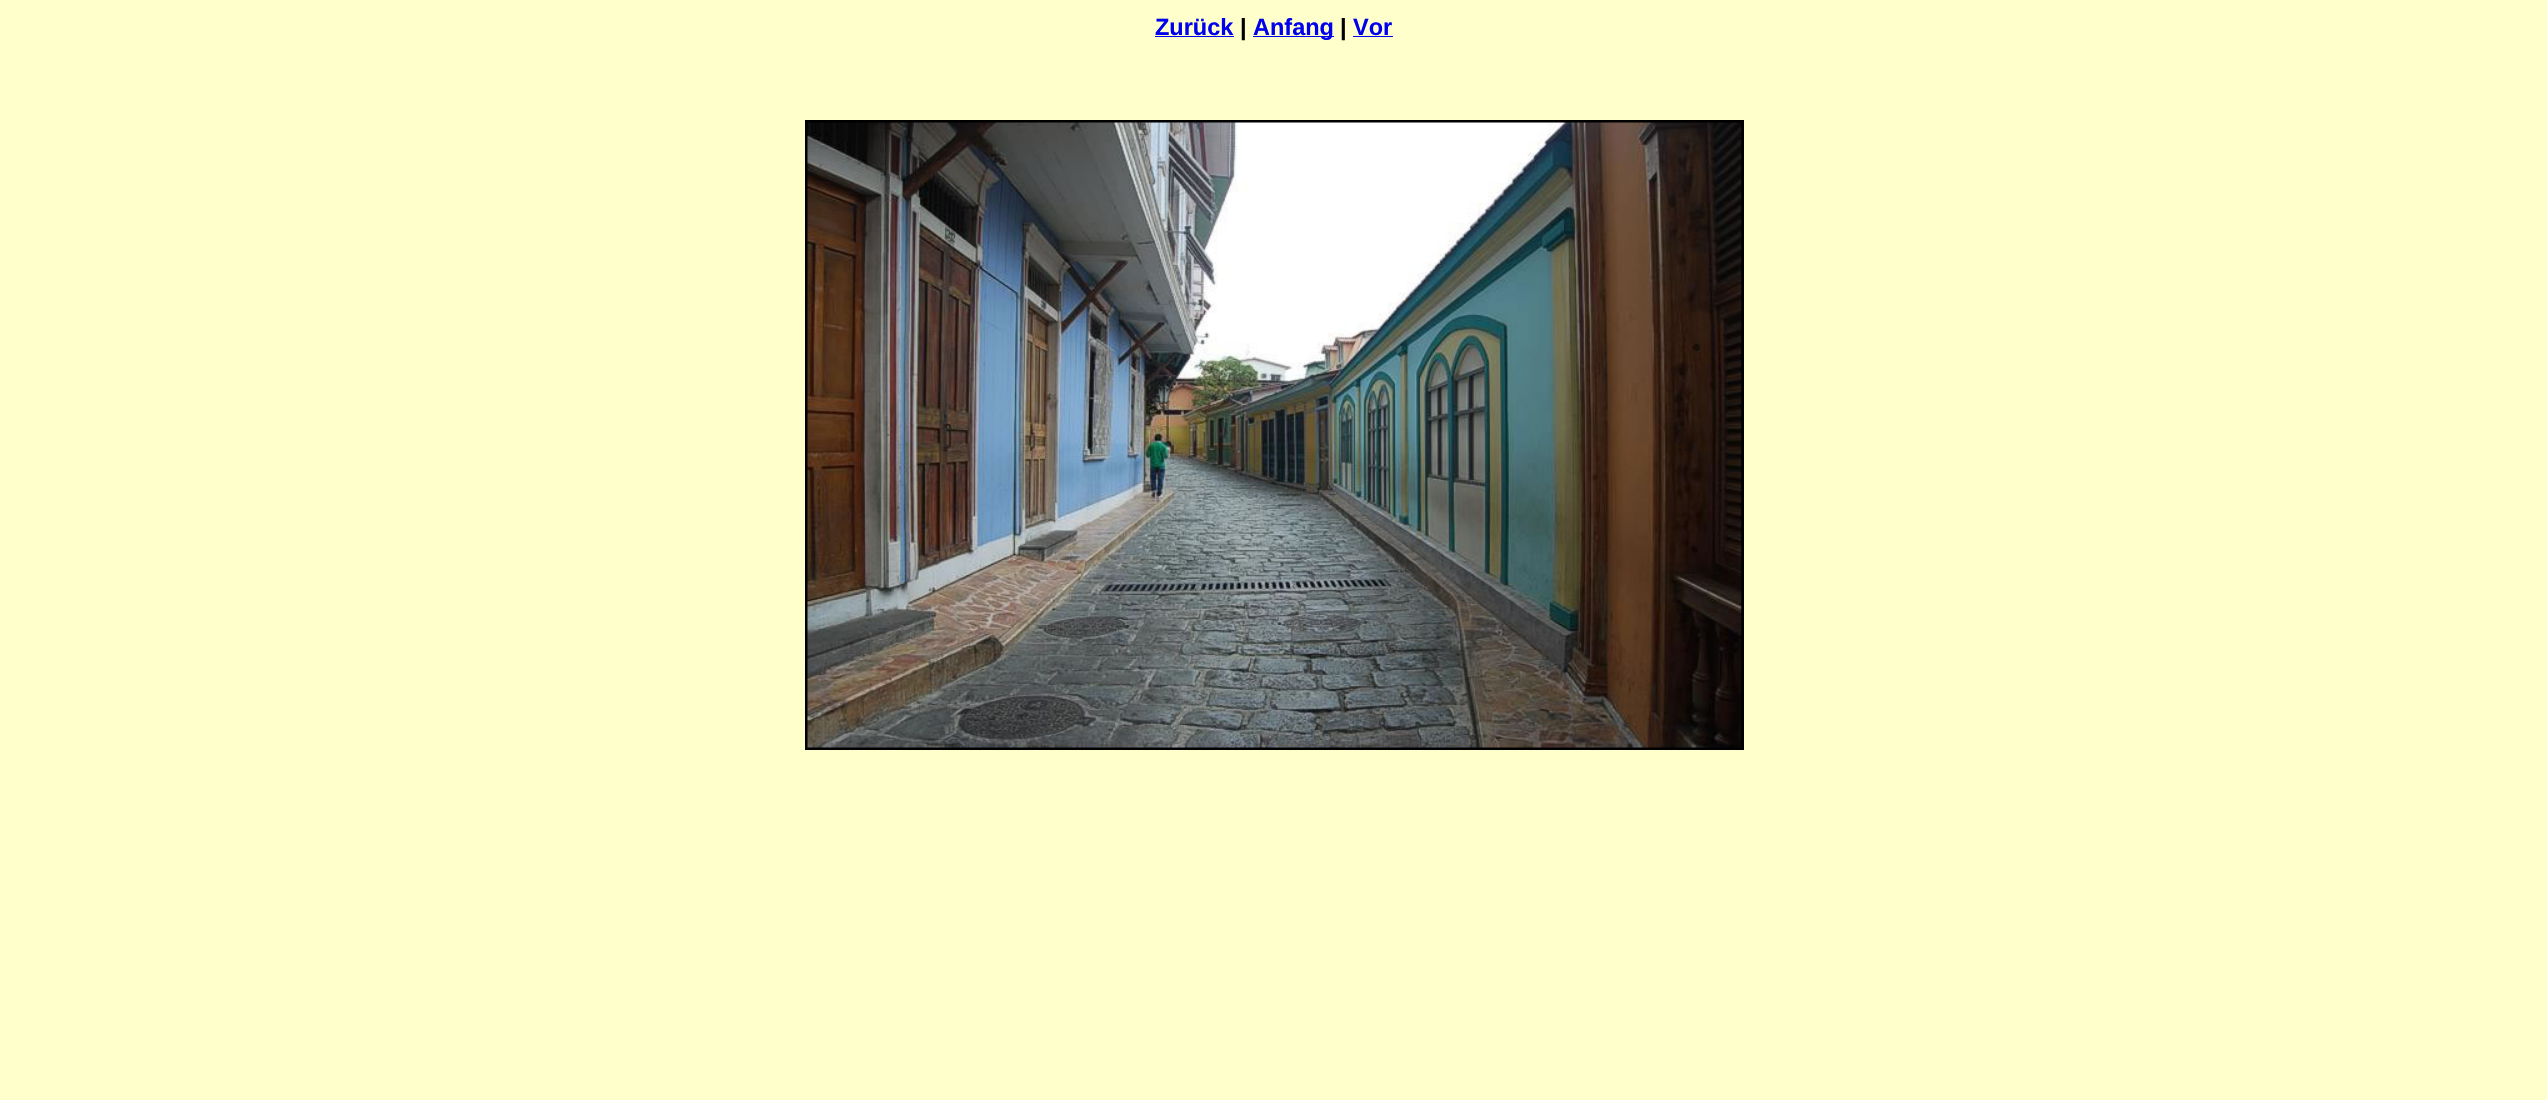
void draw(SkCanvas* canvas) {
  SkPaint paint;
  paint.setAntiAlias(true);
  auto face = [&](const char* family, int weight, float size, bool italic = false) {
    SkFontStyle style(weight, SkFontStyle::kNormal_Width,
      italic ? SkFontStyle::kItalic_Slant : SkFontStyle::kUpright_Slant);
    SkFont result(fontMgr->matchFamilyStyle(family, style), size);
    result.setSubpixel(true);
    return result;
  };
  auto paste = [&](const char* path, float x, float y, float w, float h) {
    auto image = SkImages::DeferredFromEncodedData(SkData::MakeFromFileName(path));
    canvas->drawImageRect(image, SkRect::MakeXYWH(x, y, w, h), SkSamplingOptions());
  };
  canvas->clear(0xffffffcc);
  {
    const struct { float x, y, w, h; SkColor color; } items[] = {
      {1155, 36, 79, 1, 0xff0000ee},
      {1253, 36, 81, 1, 0xff0000ee},
      {1353, 36, 40, 1, 0xff0000ee},
    };
    for (auto [x, y, w, h, color] : items) {
      paint.setColor(color);
      canvas->drawRect(SkRect::MakeXYWH(x, y, w, h), paint);
    }
  }
  paint.setStroke(true);
  paint.setStrokeWidth(3);
  paint.setColor(0xff000000);
  canvas->drawRect(SkRect::MakeXYWH(806.5f, 121.5f, 936, 627), paint);
  paste("img/1.png", 807, 122, 935, 626);
  auto f0 = face("Liberation Sans", 700, 23.5f);
  paint.setStroke(false);
  paint.setColor(0xff0000ee);
  canvas->drawString("Zurück", 1155, 35, f0, paint);
  paint.setColor(0xff000000);
  canvas->drawString("|", 1240, 35, f0, paint);
  paint.setColor(0xff0000ee);
  canvas->drawString("Anfang", 1253, 35, f0, paint);
  paint.setColor(0xff000000);
  canvas->drawString("|", 1340, 35, f0, paint);
  paint.setColor(0xff0000ee);
  canvas->drawString("Vor", 1353, 35, f0, paint);
}
